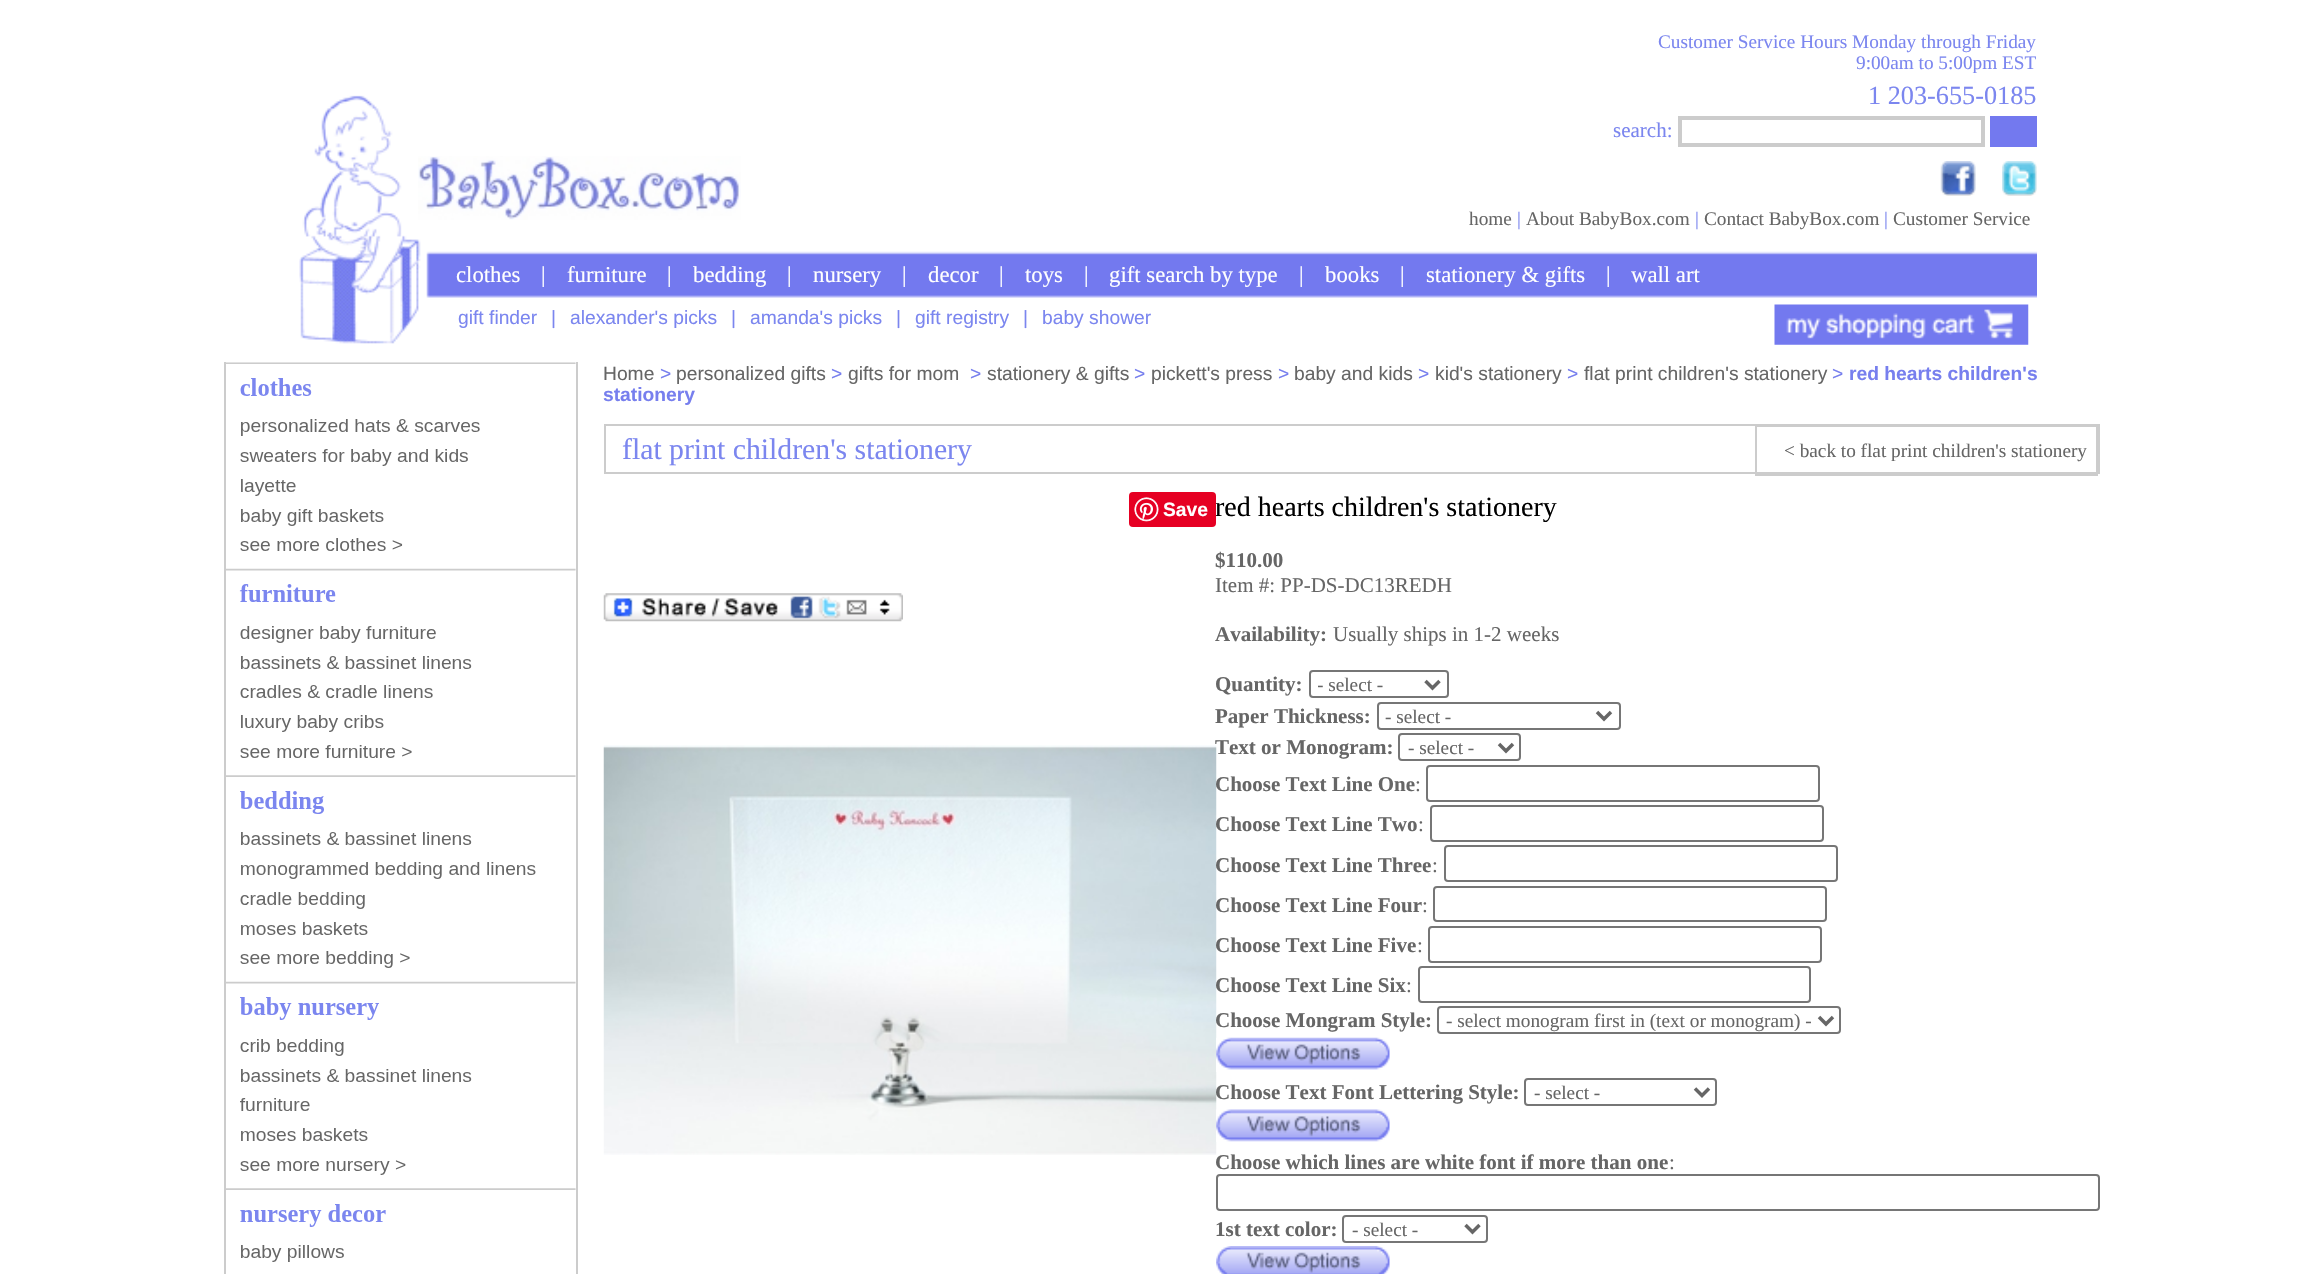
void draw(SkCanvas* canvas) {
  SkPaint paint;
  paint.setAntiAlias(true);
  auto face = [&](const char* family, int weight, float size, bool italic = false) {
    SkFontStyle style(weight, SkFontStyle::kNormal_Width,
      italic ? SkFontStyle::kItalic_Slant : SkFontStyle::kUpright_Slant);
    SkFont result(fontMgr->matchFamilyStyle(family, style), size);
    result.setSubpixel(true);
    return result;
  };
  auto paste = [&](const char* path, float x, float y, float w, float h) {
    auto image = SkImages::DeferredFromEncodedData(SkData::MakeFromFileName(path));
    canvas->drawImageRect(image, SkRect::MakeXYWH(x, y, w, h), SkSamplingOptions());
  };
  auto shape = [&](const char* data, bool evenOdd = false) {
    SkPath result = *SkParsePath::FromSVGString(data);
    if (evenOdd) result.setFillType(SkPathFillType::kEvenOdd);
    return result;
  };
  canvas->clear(0xffffffff);
  paste("img/1.png", 299, 95, 1738, 249);
  paste("img/2.png", 418, 156, 323, 64);
  paint.setStroke(true);
  paint.setStrokeWidth(4);
  paint.setColor(0xffcccccc);
  canvas->drawRect(SkRect::MakeXYWH(1680, 118, 303, 27), paint);
  paint.setStroke(false);
  paint.setColor(0xff7379ef);
  canvas->drawRect(SkRect::MakeXYWH(1990, 116, 47, 31), paint);
  paste("img/3.png", 1940, 161, 36, 35);
  paste("img/4.png", 2002, 161, 35, 35);
  paste("img/5.png", 1774, 304, 255, 41);
  paint.setColor(0xffcccccc);
  canvas->drawRect(SkRect::MakeXYWH(576, 362, 2, 912), paint);
  canvas->drawRect(SkRect::MakeXYWH(224, 362, 2, 912), paint);
  paste("img/6.png", 226, 362, 350, 900);
  paint.setStroke(true);
  paint.setStrokeWidth(2);
  canvas->drawRect(SkRect::MakeXYWH(605, 425, 1494, 48), paint);
  canvas->drawRect(SkRect::MakeXYWH(1756, 426, 341, 49), paint);
  paste("img/8.png", 603, 593, 300, 29);
  paste("img/9.png", 603, 745, 614, 410);
  paint.setColor(0xff767676);
  canvas->drawRoundRect(SkRect::MakeXYWH(1310, 671, 138, 26), 3, 3, paint);
  paint.setStrokeWidth(3.5f);
  paint.setColor(0xff666666);
  canvas->drawPath(shape("M1425.5 681L1432.5 688L1439.5 681"), paint);
  paint.setStrokeWidth(2);
  paint.setColor(0xff767676);
  canvas->drawRoundRect(SkRect::MakeXYWH(1378, 703, 242, 26), 3, 3, paint);
  paint.setStrokeWidth(3.5f);
  paint.setColor(0xff666666);
  canvas->drawPath(shape("M1597 712L1604 719L1611 712"), paint);
  paint.setStrokeWidth(2);
  paint.setColor(0xff767676);
  canvas->drawRoundRect(SkRect::MakeXYWH(1399, 734, 121, 26), 3, 3, paint);
  paint.setStrokeWidth(3.5f);
  paint.setColor(0xff666666);
  canvas->drawPath(shape("M1499 744L1506 751L1513 744"), paint);
  paint.setStrokeWidth(2);
  paint.setColor(0xff767676);
  canvas->drawRoundRect(SkRect::MakeXYWH(1427, 766, 392, 35), 3, 3, paint);
  canvas->drawRoundRect(SkRect::MakeXYWH(1431, 806, 392, 35), 3, 3, paint);
  canvas->drawRoundRect(SkRect::MakeXYWH(1445, 846, 392, 35), 3, 3, paint);
  canvas->drawRoundRect(SkRect::MakeXYWH(1434, 887, 392, 34), 3, 3, paint);
  canvas->drawRoundRect(SkRect::MakeXYWH(1429, 927, 392, 35), 3, 3, paint);
  canvas->drawRoundRect(SkRect::MakeXYWH(1419, 967, 391, 35), 3, 3, paint);
  canvas->drawRoundRect(SkRect::MakeXYWH(1438, 1007, 402, 26), 3, 3, paint);
  paint.setStrokeWidth(3.5f);
  paint.setColor(0xff666666);
  canvas->drawPath(shape("M1819 1017L1826 1024L1833 1017"), paint);
  paste("img/10.png", 1216, 1037, 174, 35);
  paint.setStrokeWidth(2);
  paint.setColor(0xff767676);
  canvas->drawRoundRect(SkRect::MakeXYWH(1525, 1079, 191, 26), 3, 3, paint);
  paint.setStrokeWidth(3.5f);
  paint.setColor(0xff666666);
  canvas->drawPath(shape("M1695 1088.5L1702 1095.5L1709 1088.5"), paint);
  paste("img/11.png", 1216, 1109, 174, 33);
  paint.setStrokeWidth(2);
  paint.setColor(0xff767676);
  canvas->drawRoundRect(SkRect::MakeXYWH(1217, 1175, 882, 35), 3, 3, paint);
  canvas->drawRoundRect(SkRect::MakeXYWH(1343, 1216, 144, 26), 3, 3, paint);
  paint.setStrokeWidth(3.5f);
  paint.setColor(0xff666666);
  canvas->drawPath(shape("M1465.5 1225L1472.5 1232L1479.5 1225"), paint);
  paste("img/12.png", 1216, 1246, 174, 28);
  auto f0 = face("Liberation Serif", 400, 19.25f);
  paint.setStroke(false);
  paint.setColor(0xff7b86ef);
  canvas->drawString("Customer Service Hours Monday through Friday", 1658, 48, f0, paint);
  canvas->drawString("9:00am to 5:00pm EST", 1856, 69, f0, paint);
  auto f1 = face("Liberation Serif", 400, 26.25f);
  canvas->drawString("1 203-655-0185", 1868, 104, f1, paint);
  auto f2 = face("Liberation Serif", 400, 21);
  canvas->drawString("search:", 1613, 137, f2, paint);
  paint.setColor(0xff666666);
  canvas->drawString("home", 1469, 225, f0, paint);
  paint.setColor(0xff7b86ef);
  canvas->drawString("|", 1517, 225, f0, paint);
  paint.setColor(0xff666666);
  canvas->drawString("About BabyBox.com", 1526, 225, f0, paint);
  paint.setColor(0xff7b86ef);
  canvas->drawString("|", 1695, 225, f0, paint);
  paint.setColor(0xff666666);
  canvas->drawString("Contact BabyBox.com", 1704, 225, f0, paint);
  paint.setColor(0xff7b86ef);
  canvas->drawString("|", 1884, 225, f0, paint);
  paint.setColor(0xff666666);
  canvas->drawString("Customer Service", 1893, 225, f0, paint);
  auto f3 = face("Liberation Serif", 400, 22.75f);
  paint.setColor(0xffffffff);
  {
    const struct { const char* s; float x, y; } items[] = {
      {"clothes", 456, 282},
      {"|", 541, 282},
      {"furniture", 567, 282},
      {"|", 667, 282},
      {"bedding", 693, 282},
      {"|", 787, 282},
      {"nursery", 813, 282},
      {"|", 902, 282},
      {"decor", 928, 282},
      {"|", 999, 282},
      {"toys", 1025, 282},
      {"|", 1084, 282},
      {"gift search by type", 1109, 282},
      {"|", 1299, 282},
      {"books", 1325, 282},
      {"|", 1400, 282},
      {"stationery & gifts", 1426, 282},
      {"|", 1606, 282},
      {"wall art", 1631, 282},
    };
    for (auto [s, x, y] : items) {
      canvas->drawString(s, x, y, f3, paint);
    }
  }
  auto f4 = face("Liberation Sans", 400, 19.25f);
  paint.setColor(0xff7b86ef);
  {
    const struct { const char* s; float x, y; } items[] = {
      {"gift finder", 458, 324},
      {"|", 551, 324},
      {"alexander's picks", 570, 324},
      {"|", 731, 324},
      {"amanda's picks", 750, 324},
      {"|", 896, 324},
      {"gift registry", 915, 324},
      {"|", 1023, 324},
      {"baby shower", 1042, 324},
    };
    for (auto [s, x, y] : items) {
      canvas->drawString(s, x, y, f4, paint);
    }
  }
  paint.setColor(0xff666666);
  canvas->drawString("Home", 603, 380, f4, paint);
  paint.setColor(0xff777fee);
  canvas->drawString(">", 660, 380, f4, paint);
  paint.setColor(0xff666666);
  canvas->drawString("personalized gifts", 676, 380, f4, paint);
  paint.setColor(0xff777fee);
  canvas->drawString(">", 831, 380, f4, paint);
  paint.setColor(0xff666666);
  canvas->drawString("gifts for mom", 848, 380, f4, paint);
  paint.setColor(0xff777fee);
  canvas->drawString(">", 970, 380, f4, paint);
  paint.setColor(0xff666666);
  canvas->drawString("stationery & gifts", 987, 380, f4, paint);
  paint.setColor(0xff777fee);
  canvas->drawString(">", 1134, 380, f4, paint);
  paint.setColor(0xff666666);
  canvas->drawString("pickett's press", 1151, 380, f4, paint);
  paint.setColor(0xff777fee);
  canvas->drawString(">", 1278, 380, f4, paint);
  paint.setColor(0xff666666);
  canvas->drawString("baby and kids", 1294, 380, f4, paint);
  paint.setColor(0xff777fee);
  canvas->drawString(">", 1418, 380, f4, paint);
  paint.setColor(0xff666666);
  canvas->drawString("kid's stationery", 1435, 380, f4, paint);
  paint.setColor(0xff777fee);
  canvas->drawString(">", 1567, 380, f4, paint);
  paint.setColor(0xff666666);
  canvas->drawString("flat print children's stationery", 1584, 380, f4, paint);
  paint.setColor(0xff777fee);
  canvas->drawString(">", 1832, 380, f4, paint);
  auto f5 = face("Liberation Sans", 700, 19.25f);
  canvas->drawString("red hearts children's", 1849, 380, f5, paint);
  canvas->drawString("stationery", 603, 401, f5, paint);
  auto f6 = face("Liberation Serif", 400, 29.75f);
  paint.setColor(0xff7b86ef);
  canvas->drawString("flat print children's stationery", 622, 459, f6, paint);
  paint.setColor(0xff666666);
  canvas->drawString("< back to flat print children's stationery", 1784, 457, f0, paint);
  auto f7 = face("Liberation Serif", 400, 28);
  paint.setColor(0xff000000);
  canvas->drawString("red hearts children's stationery", 1215, 516, f7, paint);
  paint.setColor(0xffe60023);
  canvas->drawRoundRect(SkRect::MakeXYWH(1129, 492, 87, 35), 4, 4, paint);
  paint.setColor(0xffffffff);
  canvas->drawString("Save", 1163, 516, f5, paint);
  paste("img/7.png", 1134, 497, 25, 25);
  auto f8 = face("Liberation Serif", 700, 21);
  paint.setColor(0xff666666);
  canvas->drawString("$110.00", 1215, 567, f8, paint);
  canvas->drawString("Item #: PP-DS-DC13REDH", 1215, 592, f2, paint);
  canvas->drawString("Availability:", 1215, 641, f8, paint);
  canvas->drawString("Usually ships in 1-2 weeks", 1333, 641, f2, paint);
  canvas->drawString("Quantity:", 1215, 691, f8, paint);
  canvas->save();
  canvas->clipRect(SkRect::MakeXYWH(1318, 672, 101, 25));
  canvas->drawString("- select -", 1317, 691, f0, paint);
  canvas->restore();
  canvas->drawString("Paper Thickness:", 1215, 723, f8, paint);
  canvas->drawString("- select -", 1385, 723, f0, paint);
  canvas->drawString("Text or Monogram:", 1215, 754, f8, paint);
  canvas->drawString("- select -", 1408, 754, f0, paint);
  canvas->drawString("Choose Text Line One", 1215, 791, f8, paint);
  canvas->drawString(":", 1415, 791, f2, paint);
  canvas->drawString("Choose Text Line Two", 1215, 831, f8, paint);
  canvas->drawString(":", 1418, 831, f2, paint);
  canvas->drawString("Choose Text Line Three", 1215, 872, f8, paint);
  canvas->drawString(":", 1432, 872, f2, paint);
  canvas->drawString("Choose Text Line Four", 1215, 912, f8, paint);
  canvas->drawString(":", 1422, 912, f2, paint);
  canvas->drawString("Choose Text Line Five", 1215, 952, f8, paint);
  canvas->drawString(":", 1417, 952, f2, paint);
  canvas->drawString("Choose Text Line Six", 1215, 992, f8, paint);
  canvas->drawString(":", 1406, 992, f2, paint);
  canvas->drawString("Choose Mongram Style:", 1215, 1027, f8, paint);
  canvas->drawString("- select monogram first in (text or monogram) -", 1446, 1027, f0, paint);
  canvas->drawString("Choose Text Font Lettering Style:", 1215, 1099, f8, paint);
  canvas->drawString("- select -", 1534, 1099, f0, paint);
  canvas->drawString("Choose which lines are white font if more than one", 1215, 1169, f8, paint);
  canvas->drawString(":", 1669, 1169, f2, paint);
  canvas->drawString("1st text color:", 1215, 1236, f8, paint);
  canvas->drawString("- select -", 1352, 1236, f0, paint);
}
